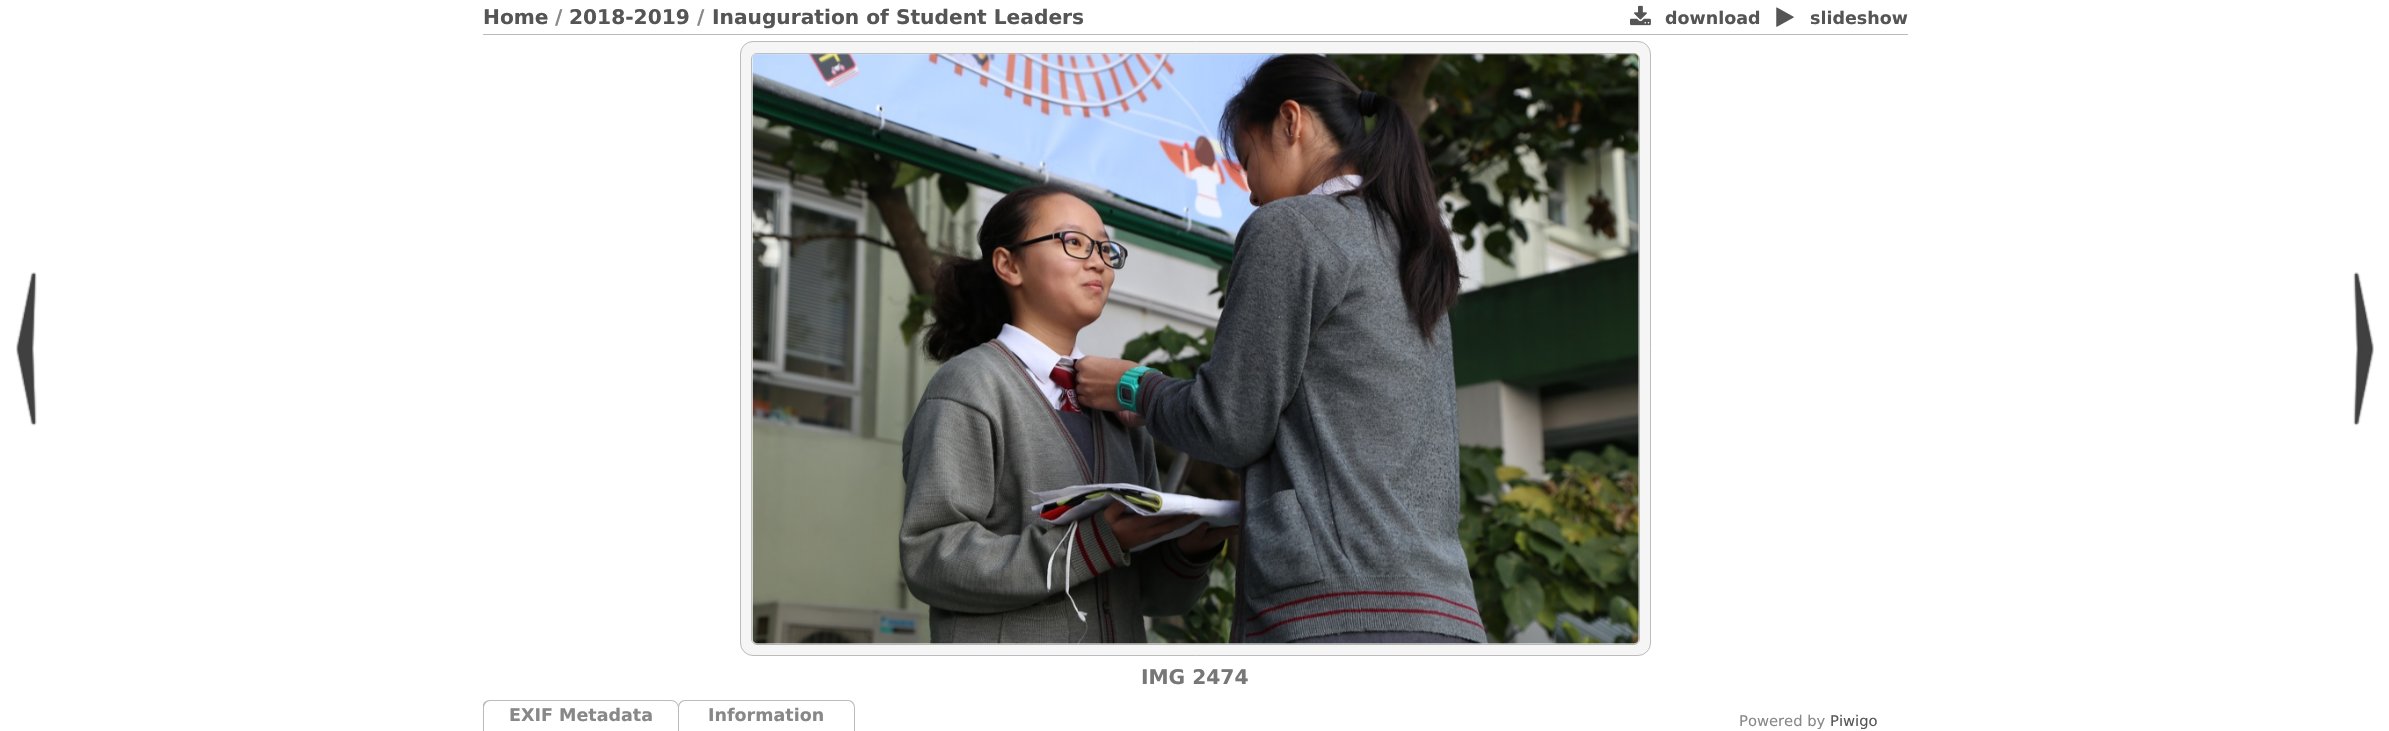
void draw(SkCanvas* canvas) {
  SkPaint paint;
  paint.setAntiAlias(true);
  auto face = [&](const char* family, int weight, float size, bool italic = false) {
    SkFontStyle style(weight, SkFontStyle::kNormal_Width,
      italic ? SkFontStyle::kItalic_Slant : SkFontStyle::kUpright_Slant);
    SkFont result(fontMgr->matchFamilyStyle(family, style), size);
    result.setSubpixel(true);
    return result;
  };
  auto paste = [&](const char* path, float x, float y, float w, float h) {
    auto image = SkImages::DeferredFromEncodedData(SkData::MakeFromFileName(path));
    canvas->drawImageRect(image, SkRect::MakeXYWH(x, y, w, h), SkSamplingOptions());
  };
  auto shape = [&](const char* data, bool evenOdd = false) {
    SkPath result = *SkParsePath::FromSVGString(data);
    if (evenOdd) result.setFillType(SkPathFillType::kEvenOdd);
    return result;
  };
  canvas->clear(0xffffffff);
  paint.setColor(0xffbbbbbb);
  canvas->drawRect(SkRect::MakeXYWH(483, 34, 1425, 1), paint);
  paste("img/1.png", 1630, 5, 21, 21);
  paste("img/2.png", 1776, 7, 18, 20);
  paste("img/3.png", 16, 272, 21, 154);
  paint.setColor(0xfff5f5f5);
  canvas->drawRoundRect(SkRect::MakeXYWH(740.5f, 41.5f, 910, 614), 12.5f, 12.5f, paint);
  paint.setStroke(true);
  paint.setStrokeWidth(1);
  paint.setColor(0xffbbbbbb);
  canvas->drawRoundRect(SkRect::MakeXYWH(740.5f, 41.5f, 910, 614), 12.5f, 12.5f, paint);
  canvas->drawRoundRect(SkRect::MakeXYWH(751.5f, 53.5f, 888, 591), 5.5f, 5.5f, paint);
  paste("img/4.png", 752, 53, 887, 592);
  paste("img/5.png", 2353, 272, 21, 154);
  canvas->save();
  canvas->clipRect(SkRect::MakeXYWH(483, 700, 372, 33));
  paint.setStroke(false);
  canvas->drawPath(shape("M490 700H671C675 700 679 703 679 708V731H482V708C482 703 486 700 490 700ZM490 701H671C675 701 678 704 678 708V731H484V708C484 704 487 701 490 701Z", true), paint);
  canvas->restore();
  canvas->drawPath(shape("M685 700H848C852 700 855 703 855 708V731H678V708C678 703 681 700 685 700ZM685 701H848C851 701 854 704 854 708V731H679V708C679 704 682 701 685 701Z", true), paint);
  auto f0 = face("DejaVu Sans", 700, 20.2f);
  paint.setColor(0xff555555);
  canvas->drawString("Home", 483, 24, f0, paint);
  paint.setColor(0xff888888);
  canvas->drawString("/", 555, 24, f0, paint);
  paint.setColor(0xff555555);
  canvas->drawString("2018-2019", 569, 24, f0, paint);
  paint.setColor(0xff888888);
  canvas->drawString("/", 697, 24, f0, paint);
  paint.setColor(0xff555555);
  canvas->drawString("Inauguration of Student Leaders", 712, 24, f0, paint);
  auto f1 = face("DejaVu Sans", 700, 17.5f);
  canvas->drawString("download", 1665, 24, f1, paint);
  canvas->drawString("slideshow", 1810, 24, f1, paint);
  paint.setColor(0xff777777);
  canvas->drawString("IMG 2474", 1141, 684, f0, paint);
  paint.setColor(0xff888888);
  canvas->drawString("EXIF Metadata", 509, 721, f1, paint);
  canvas->drawString("Information", 708, 721, f1, paint);
  auto f2 = face("DejaVu Sans", 400, 14.75f);
  canvas->drawString("Powered by", 1739, 726, f2, paint);
  paint.setColor(0xff555555);
  canvas->drawString("Piwigo", 1830, 726, f2, paint);
}
